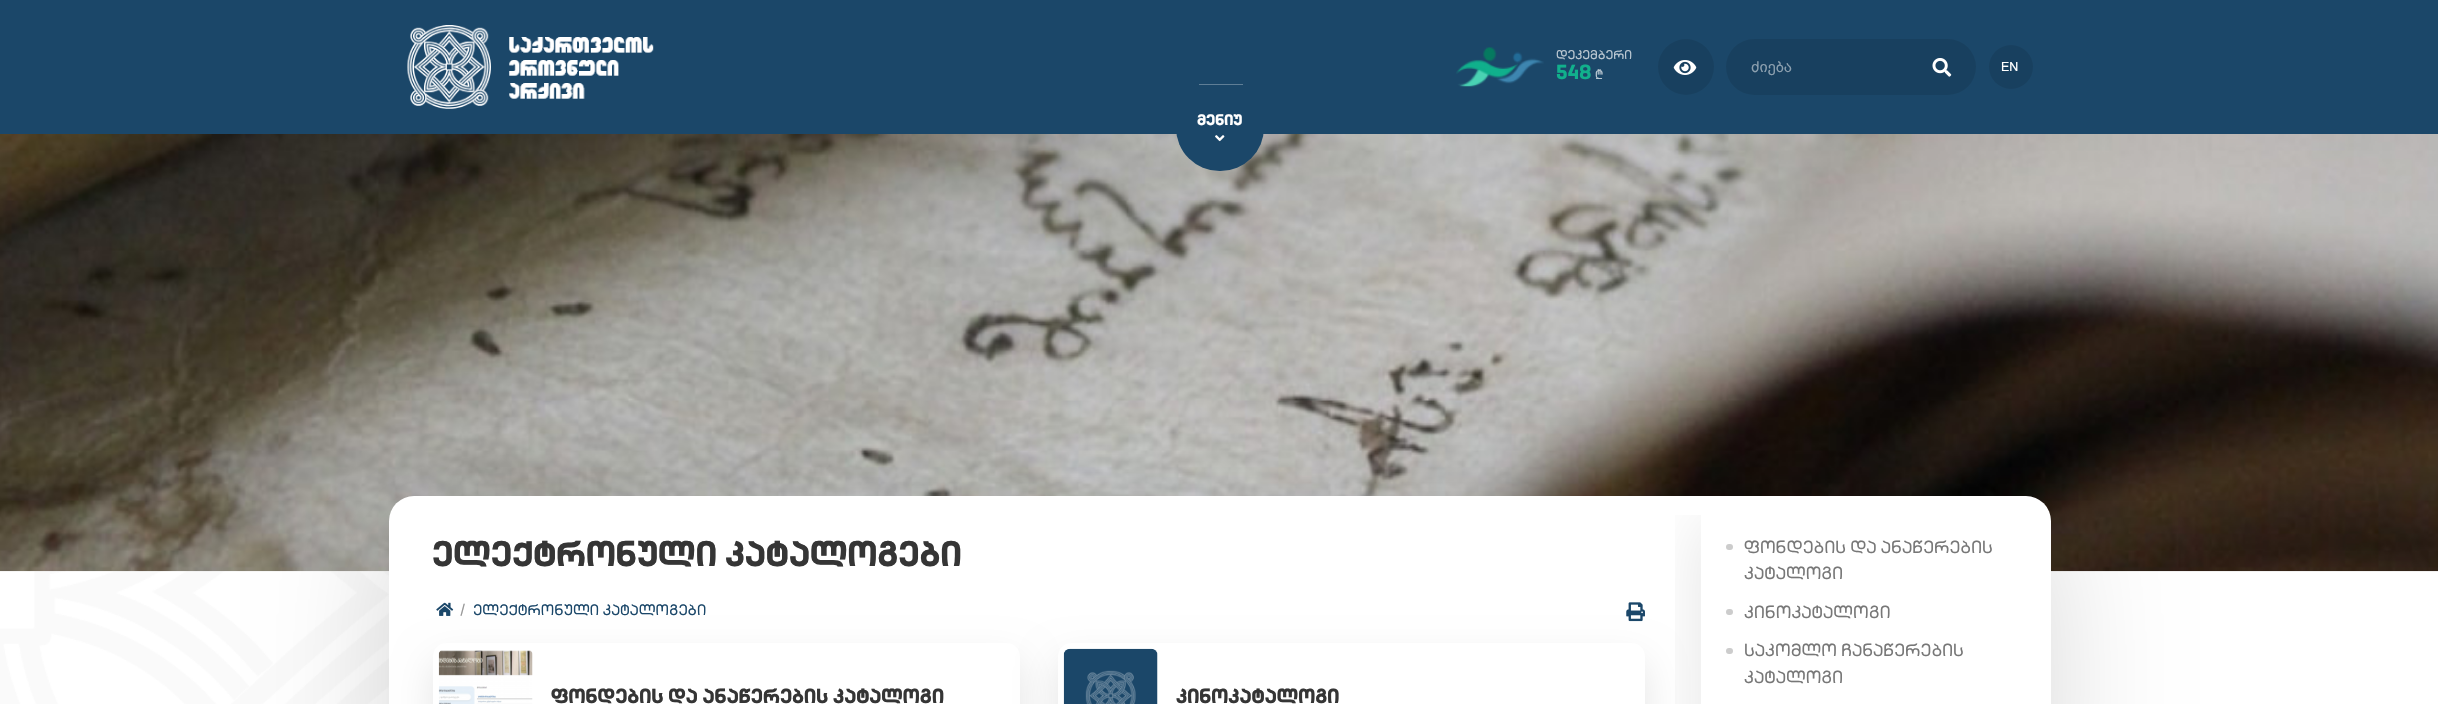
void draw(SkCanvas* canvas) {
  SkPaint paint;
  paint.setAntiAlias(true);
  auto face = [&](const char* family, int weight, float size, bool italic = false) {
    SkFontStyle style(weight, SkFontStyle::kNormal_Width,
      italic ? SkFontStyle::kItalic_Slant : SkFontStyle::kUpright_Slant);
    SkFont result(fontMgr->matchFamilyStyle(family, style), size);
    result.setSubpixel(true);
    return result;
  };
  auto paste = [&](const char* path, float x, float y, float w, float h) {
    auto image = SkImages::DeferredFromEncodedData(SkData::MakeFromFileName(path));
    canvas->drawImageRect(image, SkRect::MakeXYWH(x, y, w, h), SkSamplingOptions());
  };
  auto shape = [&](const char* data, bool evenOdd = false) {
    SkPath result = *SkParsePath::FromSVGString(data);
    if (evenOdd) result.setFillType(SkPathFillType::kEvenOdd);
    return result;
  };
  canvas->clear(0xffffffff);
  paste("img/1.png", 0, 571, 389, 133);
  paint.setColor(0xff1b4769);
  canvas->drawRect(SkRect::MakeXYWH(0, 0, 2438, 134), paint);
  paste("img/2.png", 407, 25, 247, 84);
  paste("img/3.png", 1456, 47, 88, 40);
  paint.setColor(0xff18405f);
  canvas->drawCircle(1686, 67, 28, paint);
  paste("img/4.png", 1673, 60, 24, 15);
  canvas->drawRoundRect(SkRect::MakeXYWH(1726, 39, 250, 56), 28, 28, paint);
  paste("img/5.png", 1932, 58, 20, 19);
  canvas->drawCircle(2011, 67, 22, paint);
  paste("img/7.png", 0, 134, 2438, 438);
  paint.setColor(0xff1b4769);
  canvas->drawRoundRect(SkRect::MakeXYWH(1176, 84, 88, 87), 43.5f, 43.5f, paint);
  paint.setColor(0xff5f7e96);
  canvas->drawRect(SkRect::MakeXYWH(1199, 84, 44, 1), paint);
  paste("img/6.png", 1215, 135, 10, 7);
  paint.setColor(0x26000000);
  paint.setMaskFilter(SkMaskFilter::MakeBlur(kNormal_SkBlurStyle, 62.5f));
  canvas->drawRoundRect(SkRect::MakeXYWH(389, 521, 1662, 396), 25, 25, paint);
  paint.setMaskFilter(nullptr);
  paint.setColor(0xffffffff);
  canvas->drawRoundRect(SkRect::MakeXYWH(389, 496, 1662, 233), 25, 25, paint);
  paste("img/8.png", 436, 602, 18, 14);
  paste("img/9.png", 1626, 602, 19, 20);
  canvas->save();
  canvas->clipPath(shape("M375 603H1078V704H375ZM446 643H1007C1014 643 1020 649 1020 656V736C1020 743 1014 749 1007 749H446C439 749 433 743 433 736V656C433 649 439 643 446 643Z", true), true);
  paint.setColor(0x1a000000);
  paint.setMaskFilter(SkMaskFilter::MakeBlur(kNormal_SkBlurStyle, 19));
  canvas->drawRoundRect(SkRect::MakeXYWH(433, 661, 587, 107), 13, 13, paint);
  paint.setMaskFilter(nullptr);
  canvas->restore();
  paste("img/10.png", 438, 650, 95, 54);
  canvas->save();
  canvas->clipPath(shape("M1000 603H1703V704H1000ZM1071 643H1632C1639 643 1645 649 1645 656V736C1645 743 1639 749 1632 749H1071C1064 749 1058 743 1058 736V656C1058 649 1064 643 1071 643Z", true), true);
  paint.setMaskFilter(SkMaskFilter::MakeBlur(kNormal_SkBlurStyle, 19));
  canvas->drawRoundRect(SkRect::MakeXYWH(1058, 661, 587, 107), 13, 13, paint);
  paint.setMaskFilter(nullptr);
  canvas->restore();
  paste("img/11.png", 1063, 648, 95, 56);
  canvas->save();
  canvas->clipPath(shape("M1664 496H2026C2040 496 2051 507 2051 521V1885H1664Z"), true);
  canvas->clipRect(SkRect::MakeXYWH(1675, 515, 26, 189));
  paint.setMaskFilter(SkMaskFilter::MakeBlur(kNormal_SkBlurStyle, 31));
  canvas->drawRoundRect(SkRect::MakeXYWH(1701, 521, 350, 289), 13, 13, paint);
  paint.setMaskFilter(nullptr);
  canvas->restore();
  paint.setColor(0xffcccccc);
  canvas->drawRoundRect(SkRect::MakeXYWH(1726, 544, 7, 6), 3, 3, paint);
  canvas->drawRoundRect(SkRect::MakeXYWH(1726, 609, 7, 6), 3, 3, paint);
  canvas->drawRoundRect(SkRect::MakeXYWH(1726, 648, 7, 6), 3, 3, paint);
  auto f0 = face("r", 400, 12.5f);
  paint.setColor(0xffbbc8d2);
  canvas->drawString("დეკემბერი", 1556, 59, f0, paint);
  auto f1 = face("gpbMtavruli", 700, 20);
  paint.setColor(0xff11b08c);
  canvas->drawString("548", 1556, 79, f1, paint);
  paint.setColor(0xffbbc8d2);
  canvas->drawString("₾", 1595, 79, f0, paint);
  auto f2 = face("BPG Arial", 400, 15);
  paint.setColor(0xff8ca0af);
  canvas->drawString("ძიება", 1751, 72, f2, paint);
  auto f3 = face("BPG Arial", 400, 12.5f);
  paint.setColor(0xffffffff);
  canvas->drawString("EN", 2001, 71, f3, paint);
  auto f4 = face("gpbMtavruli", 700, 15);
  canvas->drawString("მენიუ", 1197, 125, f4, paint);
  auto f5 = face("gpbMtavruli", 700, 35);
  paint.setColor(0xff353535);
  canvas->drawString("ელექტრონული კატალოგები", 432, 566, f5, paint);
  auto f6 = face("r", 400, 15);
  paint.setColor(0xff999999);
  canvas->drawString("/", 460, 615, f6, paint);
  paint.setColor(0xff1b4769);
  canvas->drawString("ელექტრონული კატალოგები", 473, 615, f6, paint);
  paint.setColor(0xff353535);
  canvas->drawString("ფონდების და ანაწერების კატალოგი", 551, 703, f1, paint);
  canvas->drawString("კინოკატალოგი", 1176, 703, f1, paint);
  auto f7 = face("r", 400, 17.5f);
  paint.setColor(0xff777777);
  {
    const struct { const char* s; float x, y; } items[] = {
      {"ფონდების და ანაწერების", 1744, 553},
      {"კატალოგი", 1744, 579},
      {"კინოკატალოგი", 1744, 618},
      {"საკომლო ჩანაწერების", 1744, 656},
      {"კატალოგი", 1744, 683},
    };
    for (auto [s, x, y] : items) {
      canvas->drawString(s, x, y, f7, paint);
    }
  }
}
